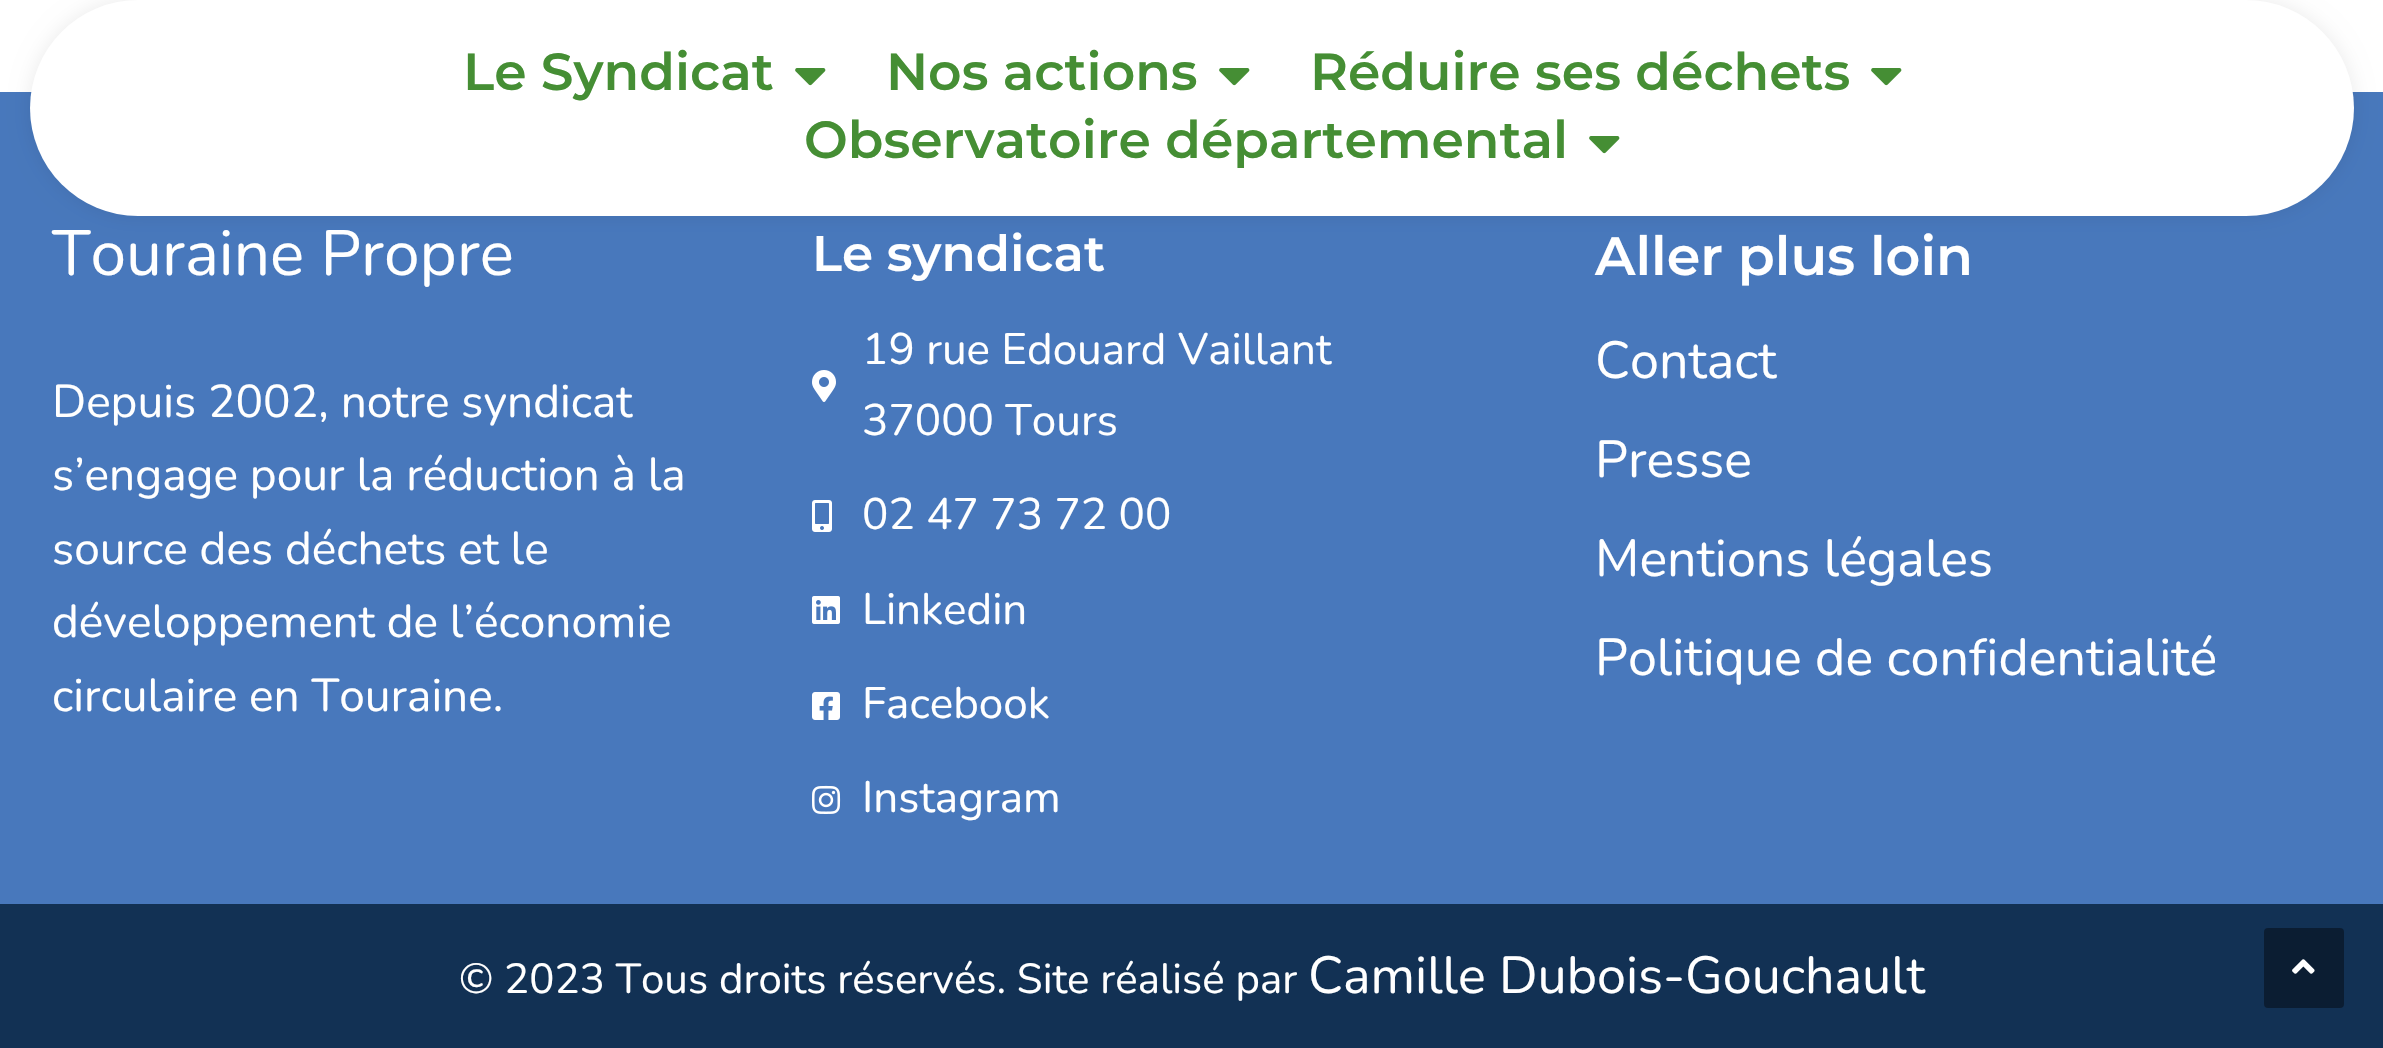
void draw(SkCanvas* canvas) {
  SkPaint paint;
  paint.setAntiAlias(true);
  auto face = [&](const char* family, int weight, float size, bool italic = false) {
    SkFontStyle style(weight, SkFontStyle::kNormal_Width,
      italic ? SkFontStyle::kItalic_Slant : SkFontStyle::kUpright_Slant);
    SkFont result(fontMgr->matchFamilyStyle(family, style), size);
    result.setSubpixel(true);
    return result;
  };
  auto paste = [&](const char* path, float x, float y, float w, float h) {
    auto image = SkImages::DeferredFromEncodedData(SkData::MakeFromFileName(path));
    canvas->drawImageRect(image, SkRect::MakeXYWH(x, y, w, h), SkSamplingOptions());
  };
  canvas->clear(0xffffffff);
  paint.setColor(0xff4878bc);
  canvas->drawRect(SkRect::MakeXYWH(0, 92, 2383, 812), paint);
  paint.setColor(0x14000000);
  paint.setMaskFilter(SkMaskFilter::MakeBlur(kNormal_SkBlurStyle, 10));
  canvas->drawRoundRect(SkRect::MakeXYWH(30, 0, 2324, 216), 108, 108, paint);
  paint.setMaskFilter(nullptr);
  paint.setColor(0xffffffff);
  canvas->drawRoundRect(SkRect::MakeXYWH(30, 0, 2324, 216), 108, 108, paint);
  paste("img/1.png", 795, 68, 31, 18);
  paste("img/1.png", 1219, 68, 31, 18);
  paste("img/1.png", 1871, 68, 31, 18);
  paste("img/1.png", 1589, 136, 31, 18);
  paste("img/2.png", 812, 370, 24, 32);
  paste("img/3.png", 812, 500, 20, 32);
  paste("img/4.png", 812, 596, 28, 28);
  paste("img/5.png", 812, 692, 28, 28);
  paste("img/6.png", 812, 785, 29, 29);
  paint.setColor(0xff123154);
  canvas->drawRect(SkRect::MakeXYWH(0, 904, 2383, 144), paint);
  paint.setColor(0xff0b1d32);
  canvas->drawRoundRect(SkRect::MakeXYWH(2264, 928, 80, 80), 4, 4, paint);
  paste("img/7.png", 2292, 959, 23, 15);
  auto f0 = face("Montserrat", 600, 52);
  paint.setColor(0xff458e34);
  {
    const struct { const char* s; float x, y; } items[] = {
      {"Le Syndicat", 463, 90},
      {"Nos actions", 886, 90},
      {"Réduire ses déchets", 1310, 90},
      {"Observatoire départemental", 804, 158},
    };
    for (auto [s, x, y] : items) {
      canvas->drawString(s, x, y, f0, paint);
    }
  }
  auto f1 = face("Nunito", 400, 64);
  paint.setColor(0xffffffff);
  canvas->drawString("Touraine Propre", 52, 275, f1, paint);
  auto f2 = face("Nunito", 400, 46);
  {
    const struct { const char* s; float x, y; } items[] = {
      {"Depuis 2002, notre syndicat", 52, 417},
      {"s’engage pour la réduction à la", 52, 490},
      {"source des déchets et le", 52, 564},
      {"développement de l’économie", 52, 637},
      {"circulaire en Touraine.", 52, 711},
    };
    for (auto [s, x, y] : items) {
      canvas->drawString(s, x, y, f2, paint);
    }
  }
  auto f3 = face("Montserrat", 600, 50);
  canvas->drawString("Le syndicat", 812, 271, f3, paint);
  auto f4 = face("Nunito", 400, 44);
  {
    const struct { const char* s; float x, y; } items[] = {
      {"19 rue Edouard Vaillant", 862, 364},
      {"37000 Tours", 862, 435},
      {"02 47 73 72 00", 862, 529},
      {"Linkedin", 862, 624},
      {"Facebook", 862, 718},
      {"Instagram", 862, 812},
    };
    for (auto [s, x, y] : items) {
      canvas->drawString(s, x, y, f4, paint);
    }
  }
  auto f5 = face("Montserrat", 600, 54);
  canvas->drawString("Aller plus loin", 1595, 275, f5, paint);
  auto f6 = face("Nunito", 400, 52);
  {
    const struct { const char* s; float x, y; } items[] = {
      {"Contact", 1595, 378},
      {"Presse", 1595, 477},
      {"Mentions légales", 1595, 576},
      {"Politique de confidentialité", 1595, 675},
    };
    for (auto [s, x, y] : items) {
      canvas->drawString(s, x, y, f6, paint);
    }
  }
  auto f7 = face("Nunito", 400, 42);
  canvas->drawString("© 2023 Tous droits réservés. Site réalisé par", 459, 993, f7, paint);
  canvas->drawString("Camille Dubois-Gouchault", 1308, 993, f6, paint);
}
